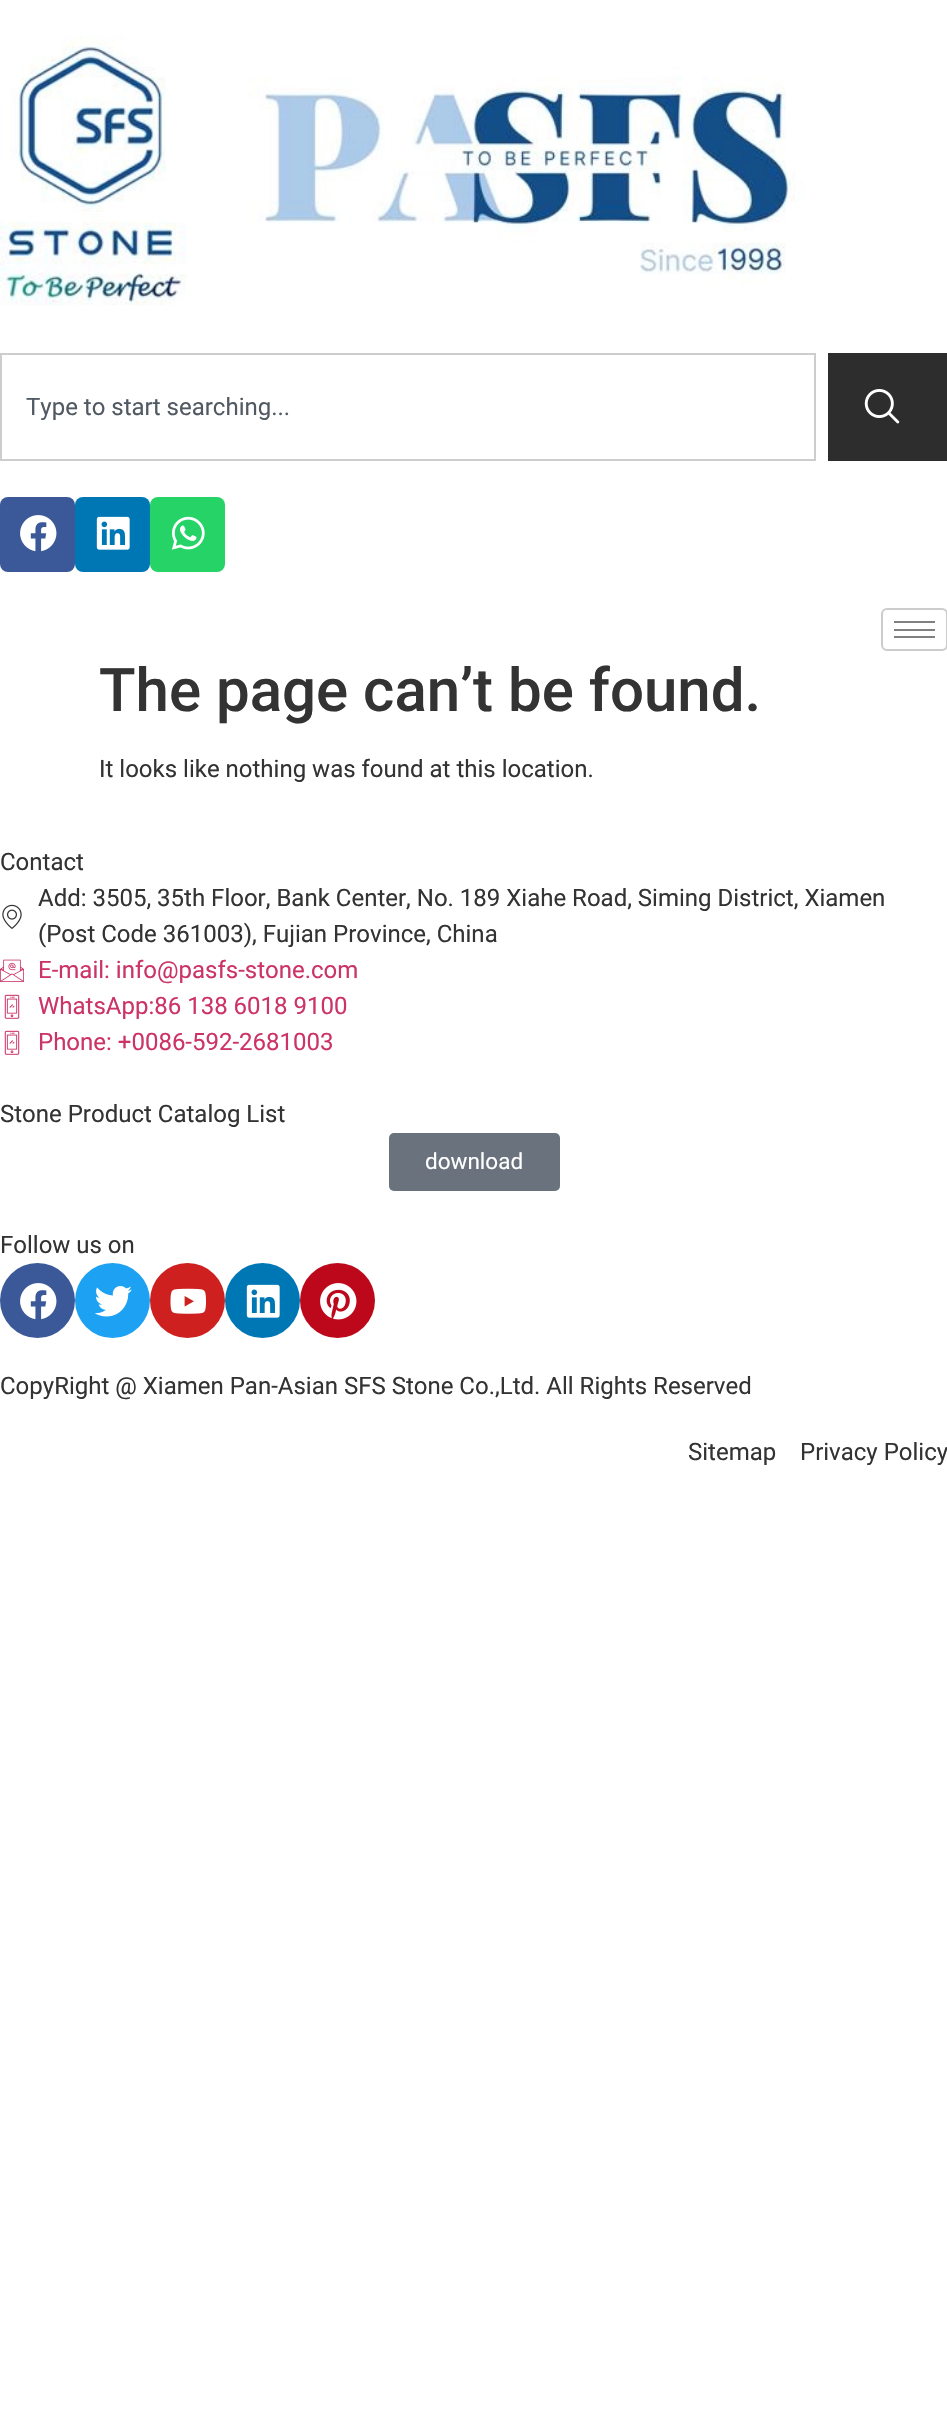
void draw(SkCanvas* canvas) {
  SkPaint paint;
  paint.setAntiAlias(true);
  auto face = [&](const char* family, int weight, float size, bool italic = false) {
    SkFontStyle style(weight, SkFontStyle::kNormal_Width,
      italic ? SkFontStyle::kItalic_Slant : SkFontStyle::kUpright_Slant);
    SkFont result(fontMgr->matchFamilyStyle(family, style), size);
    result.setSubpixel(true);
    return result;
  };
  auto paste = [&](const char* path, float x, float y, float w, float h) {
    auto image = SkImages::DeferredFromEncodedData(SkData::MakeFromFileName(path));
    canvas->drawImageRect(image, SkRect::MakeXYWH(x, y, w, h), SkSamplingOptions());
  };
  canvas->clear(0xffffffff);
  paste("img/1.png", 0, 36, 806, 270);
  paint.setStroke(true);
  paint.setStrokeWidth(2);
  paint.setColor(0xffcdcdcd);
  canvas->drawRect(SkRect::MakeXYWH(1, 354, 814, 106), paint);
  paint.setStroke(false);
  paint.setColor(0xff2d2d2d);
  canvas->drawRect(SkRect::MakeXYWH(828, 353, 119, 108), paint);
  paste("img/2.png", 864, 389, 36, 35);
  paint.setColor(0xff3b5998);
  canvas->drawRoundRect(SkRect::MakeXYWH(0, 497, 75, 75), 8, 8, paint);
  paste("img/3.png", 20, 515, 37, 37);
  paint.setColor(0xff0077b5);
  canvas->drawRoundRect(SkRect::MakeXYWH(75, 497, 75, 75), 8, 8, paint);
  paste("img/4.png", 96, 516, 34, 34);
  paint.setColor(0xff25d366);
  canvas->drawRoundRect(SkRect::MakeXYWH(150, 497, 75, 75), 8, 8, paint);
  paste("img/5.png", 171, 516, 34, 34);
  paint.setStroke(true);
  paint.setColor(0xffcccccc);
  canvas->drawRoundRect(SkRect::MakeXYWH(882, 609, 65, 41), 5, 5, paint);
  paint.setStroke(false);
  {
    const struct { float x, y, w, h; SkColor color; } items[] = {
      {894, 621, 41, 2, 0xff808080},
      {894, 629, 41, 2, 0xff808080},
      {894, 636, 41, 2, 0xff808080},
    };
    for (auto [x, y, w, h, color] : items) {
      paint.setColor(color);
      canvas->drawRect(SkRect::MakeXYWH(x, y, w, h), paint);
    }
  }
  paste("img/6.png", 2, 904, 20, 25);
  paste("img/7.png", 0, 959, 24, 23);
  paste("img/8.png", 4, 994, 16, 25);
  paste("img/8.png", 4, 1030, 16, 25);
  paint.setColor(0xff69727d);
  canvas->drawRoundRect(SkRect::MakeXYWH(389, 1133, 171, 58), 5, 5, paint);
  paint.setColor(0xff3b5998);
  canvas->drawCircle(37.5f, 1300.5f, 37.5f, paint);
  paste("img/3.png", 20, 1283, 37, 37);
  paint.setColor(0xff1da1f2);
  canvas->drawCircle(112.5f, 1300.5f, 37.5f, paint);
  paste("img/9.png", 95, 1286, 37, 31);
  paint.setColor(0xffcd201f);
  canvas->drawCircle(187.5f, 1300.5f, 37.5f, paint);
  paste("img/10.png", 170, 1288, 36, 26);
  paint.setColor(0xff0077b5);
  canvas->drawCircle(262.5f, 1300.5f, 37.5f, paint);
  paste("img/4.png", 246, 1284, 34, 34);
  paint.setColor(0xffbd081c);
  canvas->drawCircle(337.5f, 1300.5f, 37.5f, paint);
  paste("img/11.png", 320, 1283, 37, 37);
  auto f0 = face("Roboto", 400, 24);
  paint.setColor(0xff515962);
  canvas->drawString("Type to start searching...", 26, 415, f0, paint);
  auto f1 = face("Roboto", 500, 60);
  paint.setColor(0xff333333);
  canvas->drawString("The page can’t be found.", 99, 711, f1, paint);
  {
    const struct { const char* s; float x, y; } items[] = {
      {"It looks like nothing was found at this location.", 99, 777},
      {"Contact", 0, 870},
      {"Add: 3505, 35th Floor, Bank Center, No. 189 Xiahe Road, Siming District, Xiamen", 38, 906},
      {"(Post Code 361003), Fujian Province, China", 38, 942},
    };
    for (auto [s, x, y] : items) {
      canvas->drawString(s, x, y, f0, paint);
    }
  }
  paint.setColor(0xffcc3366);
  {
    const struct { const char* s; float x, y; } items[] = {
      {"E-mail: info@pasfs-stone.com", 38, 978},
      {"WhatsApp:86 138 6018 9100", 38, 1014},
      {"Phone: +0086-592-2681003", 38, 1050},
    };
    for (auto [s, x, y] : items) {
      canvas->drawString(s, x, y, f0, paint);
    }
  }
  paint.setColor(0xff333333);
  canvas->drawString("Stone Product Catalog List", 0, 1122, f0, paint);
  auto f2 = face("Roboto", 400, 22.5f);
  paint.setColor(0xffffffff);
  canvas->drawString("download", 425, 1169, f2, paint);
  paint.setColor(0xff333333);
  {
    const struct { const char* s; float x, y; } items[] = {
      {"Follow us on", 0, 1253},
      {"CopyRight @ Xiamen Pan-Asian SFS Stone Co.,Ltd. All Rights Reserved", 0, 1394},
      {"Sitemap", 688, 1460},
      {"Privacy Policy", 800, 1460},
    };
    for (auto [s, x, y] : items) {
      canvas->drawString(s, x, y, f0, paint);
    }
  }
}
